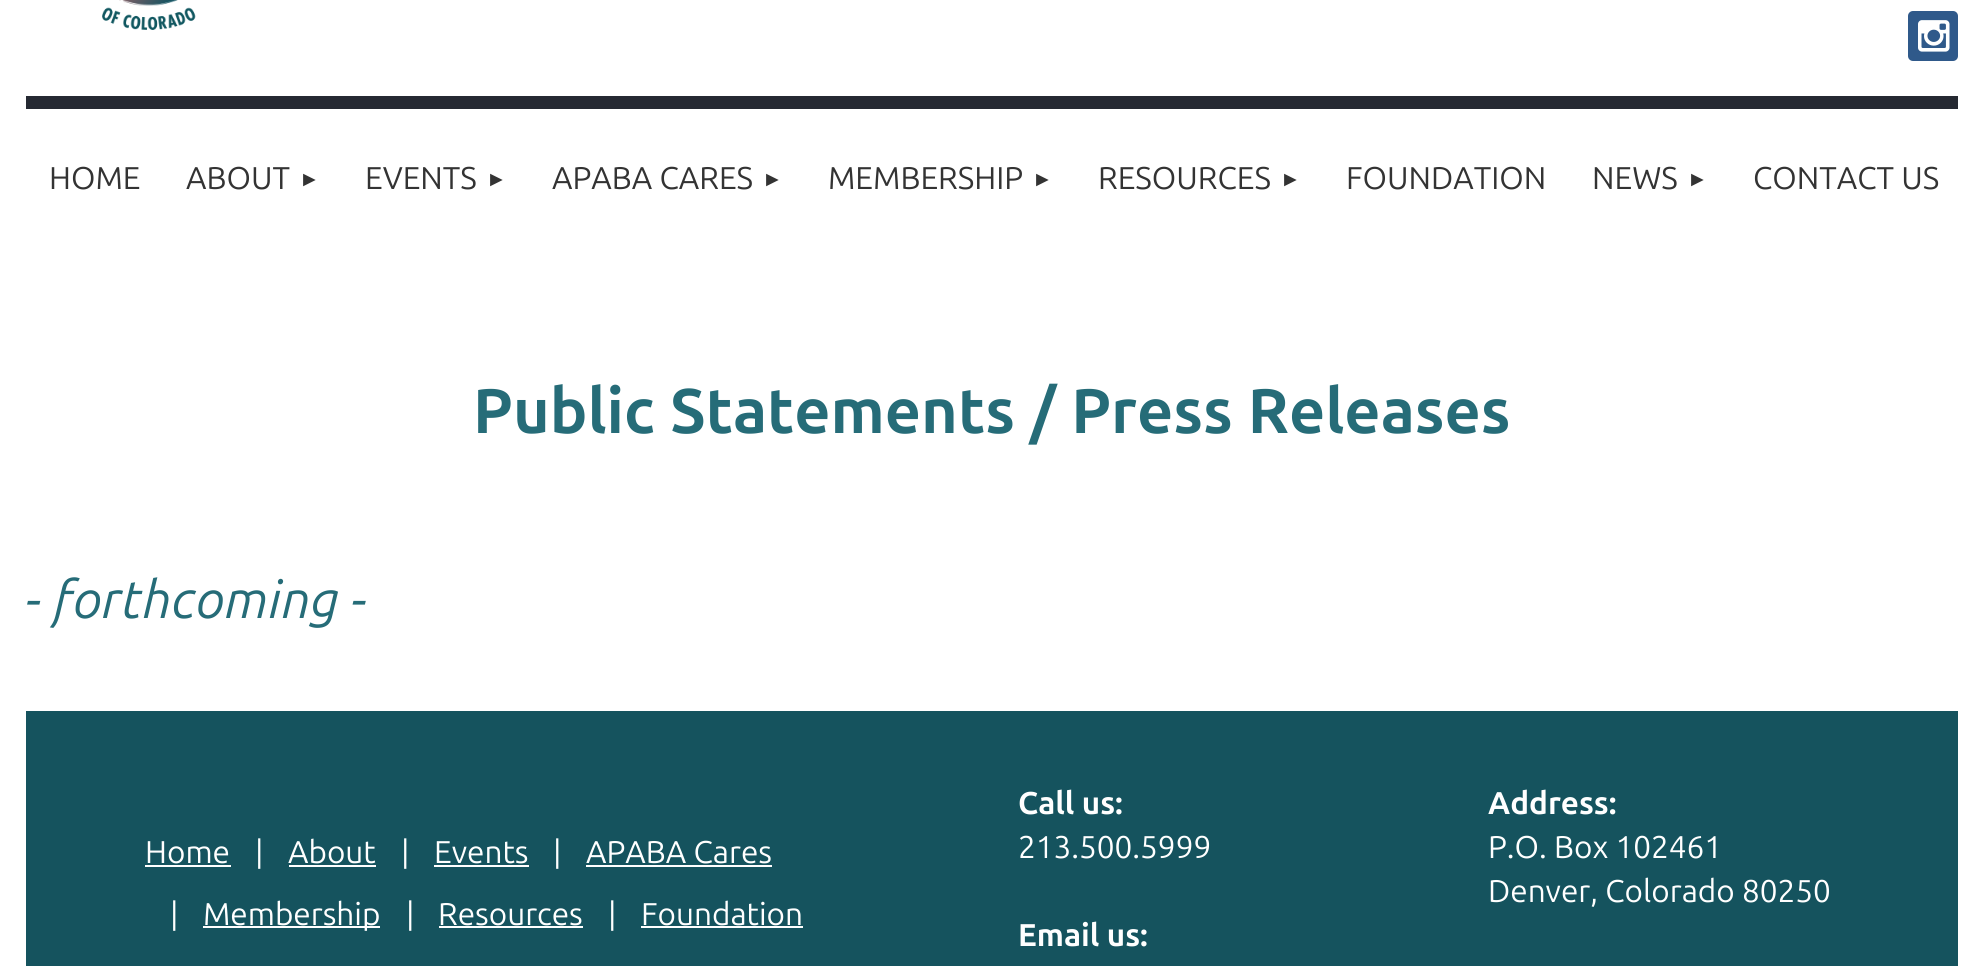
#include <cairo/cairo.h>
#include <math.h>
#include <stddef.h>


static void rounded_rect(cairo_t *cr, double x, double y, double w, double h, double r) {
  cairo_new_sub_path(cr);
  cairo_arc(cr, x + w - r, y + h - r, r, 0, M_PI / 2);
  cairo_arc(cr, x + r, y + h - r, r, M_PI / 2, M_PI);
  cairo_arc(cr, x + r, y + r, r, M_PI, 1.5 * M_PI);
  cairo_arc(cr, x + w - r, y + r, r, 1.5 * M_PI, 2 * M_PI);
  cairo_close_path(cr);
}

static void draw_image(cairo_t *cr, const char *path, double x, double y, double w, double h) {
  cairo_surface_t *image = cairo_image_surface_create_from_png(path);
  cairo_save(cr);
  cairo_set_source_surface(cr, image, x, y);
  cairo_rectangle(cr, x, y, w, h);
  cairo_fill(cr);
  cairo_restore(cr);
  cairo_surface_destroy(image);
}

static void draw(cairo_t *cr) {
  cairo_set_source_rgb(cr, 1, 1, 1);
  cairo_paint(cr);
  draw_image(cr, "images/1.png", 102, 0, 94, 30);
  cairo_set_source_rgb(cr, 47 / 255.0, 89 / 255.0, 138 / 255.0);
  rounded_rect(cr, 1908, 11, 50, 50, 5);
  cairo_fill(cr);
  draw_image(cr, "images/2.png", 1918, 20, 32, 32);
  cairo_set_source_rgb(cr, 37 / 255.0, 41 / 255.0, 50 / 255.0);
  cairo_rectangle(cr, 26, 96, 1932, 13);
  cairo_fill(cr);
  cairo_set_source_rgb(cr, 21 / 255.0, 83 / 255.0, 94 / 255.0);
  cairo_rectangle(cr, 26, 711, 1932, 255);
  cairo_fill(cr);
  cairo_set_source_rgb(cr, 1, 1, 1);
  cairo_rectangle(cr, 145, 865, 86, 2);
  cairo_fill(cr);
  cairo_rectangle(cr, 289, 865, 87, 2);
  cairo_fill(cr);
  cairo_rectangle(cr, 434, 865, 95, 2);
  cairo_fill(cr);
  cairo_rectangle(cr, 586, 865, 186, 2);
  cairo_fill(cr);
  cairo_rectangle(cr, 203, 926, 177, 2);
  cairo_fill(cr);
  cairo_rectangle(cr, 439, 926, 144, 2);
  cairo_fill(cr);
  cairo_rectangle(cr, 641, 926, 162, 2);
  cairo_fill(cr);
  cairo_select_font_face(cr, "Ubuntu", CAIRO_FONT_SLANT_NORMAL, CAIRO_FONT_WEIGHT_NORMAL);
  cairo_set_font_size(cr, 31.5);
  cairo_set_source_rgb(cr, 51 / 255.0, 51 / 255.0, 51 / 255.0);
  cairo_move_to(cr, 49, 189);
  cairo_show_text(cr, "HOME");
  cairo_move_to(cr, 186, 189);
  cairo_show_text(cr, "ABOUT");
  cairo_select_font_face(cr, "Liberation Sans", CAIRO_FONT_SLANT_NORMAL, CAIRO_FONT_WEIGHT_NORMAL);
  cairo_set_font_size(cr, 21);
  cairo_move_to(cr, 299, 186);
  cairo_show_text(cr, "►");
  cairo_select_font_face(cr, "Ubuntu", CAIRO_FONT_SLANT_NORMAL, CAIRO_FONT_WEIGHT_NORMAL);
  cairo_set_font_size(cr, 31.5);
  cairo_move_to(cr, 365, 189);
  cairo_show_text(cr, "EVENTS");
  cairo_select_font_face(cr, "Liberation Sans", CAIRO_FONT_SLANT_NORMAL, CAIRO_FONT_WEIGHT_NORMAL);
  cairo_set_font_size(cr, 21);
  cairo_move_to(cr, 486, 186);
  cairo_show_text(cr, "►");
  cairo_select_font_face(cr, "Ubuntu", CAIRO_FONT_SLANT_NORMAL, CAIRO_FONT_WEIGHT_NORMAL);
  cairo_set_font_size(cr, 31.5);
  cairo_move_to(cr, 552, 189);
  cairo_show_text(cr, "APABA CARES");
  cairo_select_font_face(cr, "Liberation Sans", CAIRO_FONT_SLANT_NORMAL, CAIRO_FONT_WEIGHT_NORMAL);
  cairo_set_font_size(cr, 21);
  cairo_move_to(cr, 762, 186);
  cairo_show_text(cr, "►");
  cairo_select_font_face(cr, "Ubuntu", CAIRO_FONT_SLANT_NORMAL, CAIRO_FONT_WEIGHT_NORMAL);
  cairo_set_font_size(cr, 31.5);
  cairo_move_to(cr, 828, 189);
  cairo_show_text(cr, "MEMBERSHIP");
  cairo_select_font_face(cr, "Liberation Sans", CAIRO_FONT_SLANT_NORMAL, CAIRO_FONT_WEIGHT_NORMAL);
  cairo_set_font_size(cr, 21);
  cairo_move_to(cr, 1032, 186);
  cairo_show_text(cr, "►");
  cairo_select_font_face(cr, "Ubuntu", CAIRO_FONT_SLANT_NORMAL, CAIRO_FONT_WEIGHT_NORMAL);
  cairo_set_font_size(cr, 31.5);
  cairo_move_to(cr, 1098, 189);
  cairo_show_text(cr, "RESOURCES");
  cairo_select_font_face(cr, "Liberation Sans", CAIRO_FONT_SLANT_NORMAL, CAIRO_FONT_WEIGHT_NORMAL);
  cairo_set_font_size(cr, 21);
  cairo_move_to(cr, 1280, 186);
  cairo_show_text(cr, "►");
  cairo_select_font_face(cr, "Ubuntu", CAIRO_FONT_SLANT_NORMAL, CAIRO_FONT_WEIGHT_NORMAL);
  cairo_set_font_size(cr, 31.5);
  cairo_move_to(cr, 1346, 189);
  cairo_show_text(cr, "FOUNDATION");
  cairo_move_to(cr, 1592, 189);
  cairo_show_text(cr, "NEWS");
  cairo_select_font_face(cr, "Liberation Sans", CAIRO_FONT_SLANT_NORMAL, CAIRO_FONT_WEIGHT_NORMAL);
  cairo_set_font_size(cr, 21);
  cairo_move_to(cr, 1687, 186);
  cairo_show_text(cr, "►");
  cairo_select_font_face(cr, "Ubuntu", CAIRO_FONT_SLANT_NORMAL, CAIRO_FONT_WEIGHT_NORMAL);
  cairo_set_font_size(cr, 31.5);
  cairo_move_to(cr, 1753, 189);
  cairo_show_text(cr, "CONTACT US");
  cairo_select_font_face(cr, "Ubuntu", CAIRO_FONT_SLANT_NORMAL, CAIRO_FONT_WEIGHT_BOLD);
  cairo_set_font_size(cr, 63);
  cairo_set_source_rgb(cr, 38 / 255.0, 108 / 255.0, 120 / 255.0);
  cairo_move_to(cr, 473, 433);
  cairo_show_text(cr, "Public Statements / Press Releases");
  cairo_select_font_face(cr, "Ubuntu", CAIRO_FONT_SLANT_ITALIC, CAIRO_FONT_WEIGHT_NORMAL);
  cairo_set_font_size(cr, 52.5);
  cairo_move_to(cr, 26, 618);
  cairo_show_text(cr, "- forthcoming -");
  cairo_select_font_face(cr, "Ubuntu", CAIRO_FONT_SLANT_NORMAL, CAIRO_FONT_WEIGHT_NORMAL);
  cairo_set_font_size(cr, 31.5);
  cairo_set_source_rgb(cr, 1, 1, 1);
  cairo_move_to(cr, 145, 863);
  cairo_show_text(cr, "Home");
  cairo_move_to(cr, 255, 863);
  cairo_show_text(cr, "|");
  cairo_move_to(cr, 288, 863);
  cairo_show_text(cr, "About");
  cairo_move_to(cr, 401, 863);
  cairo_show_text(cr, "|");
  cairo_move_to(cr, 434, 863);
  cairo_show_text(cr, "Events");
  cairo_move_to(cr, 553, 863);
  cairo_show_text(cr, "|");
  cairo_move_to(cr, 586, 863);
  cairo_show_text(cr, "APABA Cares");
  cairo_move_to(cr, 170, 925);
  cairo_show_text(cr, "|");
  cairo_move_to(cr, 203, 925);
  cairo_show_text(cr, "Membership");
  cairo_move_to(cr, 406, 925);
  cairo_show_text(cr, "|");
  cairo_move_to(cr, 438, 925);
  cairo_show_text(cr, "Resources");
  cairo_move_to(cr, 608, 925);
  cairo_show_text(cr, "|");
  cairo_move_to(cr, 641, 925);
  cairo_show_text(cr, "Foundation");
  cairo_select_font_face(cr, "Ubuntu", CAIRO_FONT_SLANT_NORMAL, CAIRO_FONT_WEIGHT_BOLD);
  cairo_move_to(cr, 1018, 814);
  cairo_show_text(cr, "Call us:");
  cairo_select_font_face(cr, "Ubuntu", CAIRO_FONT_SLANT_NORMAL, CAIRO_FONT_WEIGHT_NORMAL);
  cairo_move_to(cr, 1018, 858);
  cairo_show_text(cr, "213.500.5999");
  cairo_select_font_face(cr, "Ubuntu", CAIRO_FONT_SLANT_NORMAL, CAIRO_FONT_WEIGHT_BOLD);
  cairo_move_to(cr, 1018, 946);
  cairo_show_text(cr, "Email us:");
  cairo_move_to(cr, 1488, 814);
  cairo_show_text(cr, "Address:");
  cairo_select_font_face(cr, "Ubuntu", CAIRO_FONT_SLANT_NORMAL, CAIRO_FONT_WEIGHT_NORMAL);
  cairo_move_to(cr, 1488, 858);
  cairo_show_text(cr, "P.O. Box 102461");
  cairo_move_to(cr, 1488, 902);
  cairo_show_text(cr, "Denver, Colorado 80250");
}

int main(void) {
  cairo_surface_t *surface = cairo_image_surface_create(CAIRO_FORMAT_RGB24, 1984, 966);
  cairo_t *cr = cairo_create(surface);
  cairo_font_options_t *options = cairo_font_options_create();
  cairo_font_options_set_hint_metrics(options, CAIRO_HINT_METRICS_OFF);
  cairo_font_options_set_hint_style(options, CAIRO_HINT_STYLE_NONE);
  cairo_set_font_options(cr, options);
  cairo_set_miter_limit(cr, 4);
  draw(cr);
  cairo_surface_write_to_png(surface, "out.png");
  cairo_font_options_destroy(options);
  cairo_destroy(cr);
  cairo_surface_destroy(surface);
  return 0;
}
